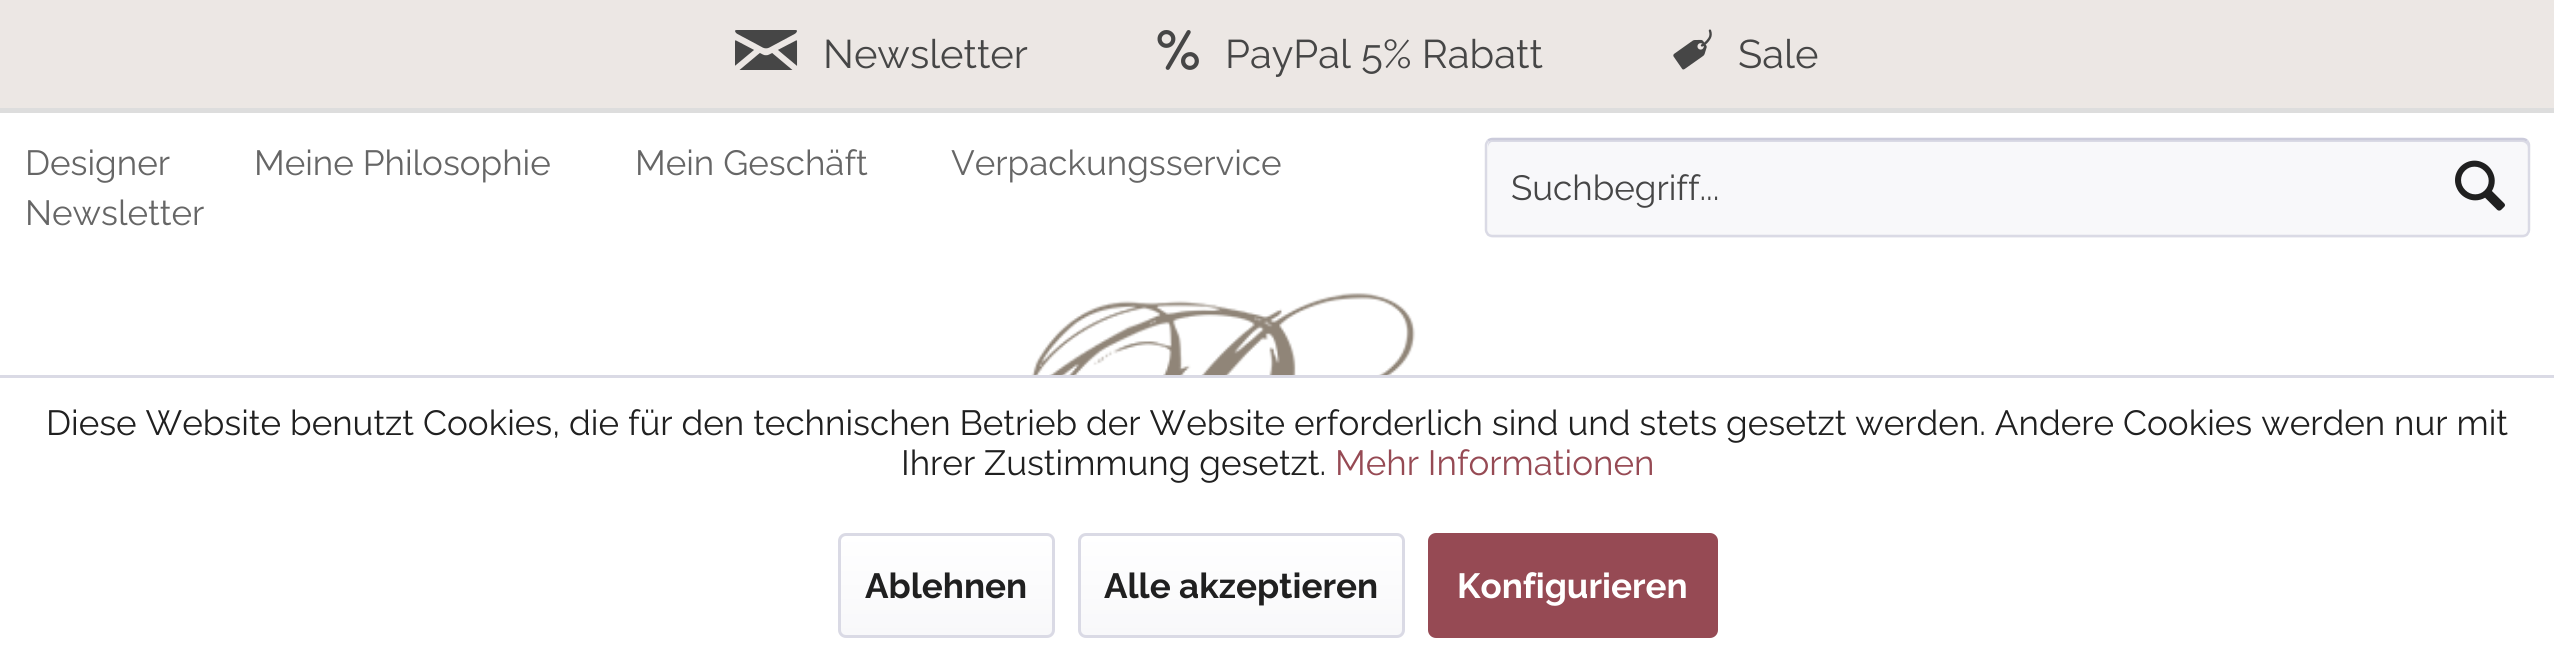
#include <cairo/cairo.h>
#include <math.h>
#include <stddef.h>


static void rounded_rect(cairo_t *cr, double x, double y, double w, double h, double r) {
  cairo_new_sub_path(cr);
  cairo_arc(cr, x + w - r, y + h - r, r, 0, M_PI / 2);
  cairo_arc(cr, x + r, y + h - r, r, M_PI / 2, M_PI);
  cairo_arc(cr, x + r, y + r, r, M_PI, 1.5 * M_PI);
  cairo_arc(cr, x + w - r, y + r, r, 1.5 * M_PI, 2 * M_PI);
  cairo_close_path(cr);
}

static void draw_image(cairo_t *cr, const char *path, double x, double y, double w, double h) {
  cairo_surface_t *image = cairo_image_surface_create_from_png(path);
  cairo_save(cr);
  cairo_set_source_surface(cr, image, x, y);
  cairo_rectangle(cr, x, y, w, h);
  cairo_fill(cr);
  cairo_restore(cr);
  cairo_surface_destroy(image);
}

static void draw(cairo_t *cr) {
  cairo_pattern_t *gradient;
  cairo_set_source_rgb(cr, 236 / 255.0, 231 / 255.0, 228 / 255.0);
  cairo_paint(cr);
  cairo_set_source_rgb(cr, 221 / 255.0, 221 / 255.0, 221 / 255.0);
  cairo_rectangle(cr, 0, 108, 2554, 5);
  cairo_fill(cr);
  draw_image(cr, "images/1.png", 735, 30, 63, 40);
  draw_image(cr, "images/2.png", 1157, 30, 42, 40);
  draw_image(cr, "images/3.png", 1673, 29, 39, 41);
  cairo_set_source_rgb(cr, 1, 1, 1);
  cairo_rectangle(cr, 0, 113, 2554, 262);
  cairo_fill(cr);
  cairo_set_source_rgb(cr, 248 / 255.0, 248 / 255.0, 250 / 255.0);
  rounded_rect(cr, 1485, 138, 1045, 100, 8);
  cairo_fill(cr);
  cairo_set_source_rgb(cr, 218 / 255.0, 218 / 255.0, 229 / 255.0);
  cairo_new_path(cr);
  cairo_move_to(cr, 1492, 142);
  cairo_line_to(cr, 2522, 142);
  cairo_curve_to(cr, 2525, 142, 2528, 145, 2528, 148);
  cairo_curve_to(cr, 2528, 144, 2528, 140, 2523, 140);
  cairo_line_to(cr, 1493, 140);
  cairo_curve_to(cr, 1488, 140, 1488, 144, 1488, 148);
  cairo_curve_to(cr, 1488, 145, 1490, 142, 1492, 142);
  cairo_close_path(cr);
  cairo_fill(cr);
  cairo_new_path(cr);
  cairo_move_to(cr, 1488, 140.5);
  cairo_curve_to(cr, 1489.5, 139.5, 1491, 139, 1492.5, 139);
  cairo_line_to(cr, 2522.5, 139);
  cairo_curve_to(cr, 2524, 139, 2525.5, 139.5, 2527, 140.5);
  cairo_set_source_rgb(cr, 203 / 255.0, 203 / 255.0, 219 / 255.0);
  cairo_set_line_width(cr, 2.5);
  cairo_stroke(cr);
  cairo_new_path(cr);
  cairo_move_to(cr, 2527, 140.5);
  cairo_curve_to(cr, 2528, 142, 2529, 143.5, 2529, 145);
  cairo_line_to(cr, 2529, 230);
  cairo_curve_to(cr, 2529, 231.5, 2528, 233, 2527, 234.5);
  cairo_curve_to(cr, 2525.5, 235.5, 2524, 236, 2522.5, 236);
  cairo_line_to(cr, 1492.5, 236);
  cairo_curve_to(cr, 1491, 236, 1489.5, 235.5, 1488, 234.5);
  cairo_curve_to(cr, 1487, 233, 1486, 231.5, 1486, 230);
  cairo_line_to(cr, 1486, 145);
  cairo_curve_to(cr, 1486, 143.5, 1487, 142, 1488, 140.5);
  cairo_set_source_rgb(cr, 218 / 255.0, 218 / 255.0, 229 / 255.0);
  cairo_stroke(cr);
  draw_image(cr, "images/4.png", 2455, 160, 50, 51);
  draw_image(cr, "images/5.png", 1031, 292, 385, 83);
  cairo_set_source_rgb(cr, 1, 1, 1);
  cairo_rectangle(cr, 0, 378, 2554, 283);
  cairo_fill(cr);
  cairo_set_source_rgb(cr, 218 / 255.0, 218 / 255.0, 229 / 255.0);
  cairo_rectangle(cr, 0, 375, 2554, 3);
  cairo_fill(cr);
  gradient = cairo_pattern_create_linear(946, 535, 946, 635);
  cairo_pattern_add_color_stop_rgba(gradient, 0, 1, 1, 1, 1);
  cairo_pattern_add_color_stop_rgba(gradient, 1, 248 / 255.0, 248 / 255.0, 250 / 255.0, 1);
  cairo_set_source(cr, gradient);
  cairo_pattern_destroy(gradient);
  rounded_rect(cr, 840, 535, 213, 100, 5);
  cairo_fill(cr);
  rounded_rect(cr, 839.5, 534.5, 214, 102, 6.5);
  cairo_set_source_rgb(cr, 218 / 255.0, 218 / 255.0, 229 / 255.0);
  cairo_set_line_width(cr, 3);
  cairo_stroke(cr);
  gradient = cairo_pattern_create_linear(1241, 535, 1241, 635);
  cairo_pattern_add_color_stop_rgba(gradient, 0, 1, 1, 1, 1);
  cairo_pattern_add_color_stop_rgba(gradient, 1, 248 / 255.0, 248 / 255.0, 250 / 255.0, 1);
  cairo_set_source(cr, gradient);
  cairo_pattern_destroy(gradient);
  rounded_rect(cr, 1080, 535, 323, 100, 5);
  cairo_fill(cr);
  rounded_rect(cr, 1079.5, 534.5, 324, 102, 6.5);
  cairo_set_source_rgb(cr, 218 / 255.0, 218 / 255.0, 229 / 255.0);
  cairo_stroke(cr);
  cairo_set_source_rgb(cr, 150 / 255.0, 74 / 255.0, 84 / 255.0);
  rounded_rect(cr, 1428, 533, 290, 105, 8);
  cairo_fill(cr);
  cairo_select_font_face(cr, "Raleway Thin", CAIRO_FONT_SLANT_NORMAL, CAIRO_FONT_WEIGHT_NORMAL);
  cairo_set_font_size(cr, 40);
  cairo_set_source_rgb(cr, 70 / 255.0, 70 / 255.0, 70 / 255.0);
  cairo_move_to(cr, 823, 68);
  cairo_show_text(cr, "Newsletter");
  cairo_move_to(cr, 1225, 68);
  cairo_show_text(cr, "PayPal 5% Rabatt");
  cairo_move_to(cr, 1738, 68);
  cairo_show_text(cr, "Sale");
  cairo_set_font_size(cr, 35);
  cairo_set_source_rgb(cr, 102 / 255.0, 102 / 255.0, 102 / 255.0);
  cairo_move_to(cr, 25, 175);
  cairo_show_text(cr, "Designer");
  cairo_move_to(cr, 254, 175);
  cairo_show_text(cr, "Meine Philosophie");
  cairo_move_to(cr, 635, 175);
  cairo_show_text(cr, "Mein Geschäft");
  cairo_move_to(cr, 951, 175);
  cairo_show_text(cr, "Verpackungsservice");
  cairo_move_to(cr, 25, 225);
  cairo_show_text(cr, "Newsletter");
  cairo_set_source_rgb(cr, 70 / 255.0, 70 / 255.0, 70 / 255.0);
  cairo_move_to(cr, 1511, 200);
  cairo_show_text(cr, "Suchbegriff...");
  cairo_set_source_rgb(cr, 32 / 255.0, 32 / 255.0, 32 / 255.0);
  cairo_move_to(cr, 46, 435);
  cairo_show_text(cr, "Diese Website benutzt Cookies, die für den technischen Betrieb der Website erforderlich sind und stets gesetzt werden. Andere Cookies werden nur mit");
  cairo_move_to(cr, 901, 475);
  cairo_show_text(cr, "Ihrer Zustimmung gesetzt.");
  cairo_set_source_rgb(cr, 150 / 255.0, 74 / 255.0, 84 / 255.0);
  cairo_move_to(cr, 1335, 475);
  cairo_show_text(cr, "Mehr Informationen");
  cairo_select_font_face(cr, "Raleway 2 Thin", CAIRO_FONT_SLANT_NORMAL, CAIRO_FONT_WEIGHT_NORMAL);
  cairo_set_source_rgb(cr, 32 / 255.0, 32 / 255.0, 32 / 255.0);
  cairo_move_to(cr, 865, 598);
  cairo_show_text(cr, "Ablehnen");
  cairo_move_to(cr, 1104, 598);
  cairo_show_text(cr, "Alle akzeptieren");
  cairo_set_source_rgb(cr, 1, 1, 1);
  cairo_move_to(cr, 1457, 598);
  cairo_show_text(cr, "Konfigurieren");
}

int main(void) {
  cairo_surface_t *surface = cairo_image_surface_create(CAIRO_FORMAT_RGB24, 2554, 661);
  cairo_t *cr = cairo_create(surface);
  cairo_font_options_t *options = cairo_font_options_create();
  cairo_font_options_set_hint_metrics(options, CAIRO_HINT_METRICS_OFF);
  cairo_font_options_set_hint_style(options, CAIRO_HINT_STYLE_NONE);
  cairo_set_font_options(cr, options);
  cairo_set_miter_limit(cr, 4);
  draw(cr);
  cairo_surface_write_to_png(surface, "out.png");
  cairo_font_options_destroy(options);
  cairo_destroy(cr);
  cairo_surface_destroy(surface);
  return 0;
}
